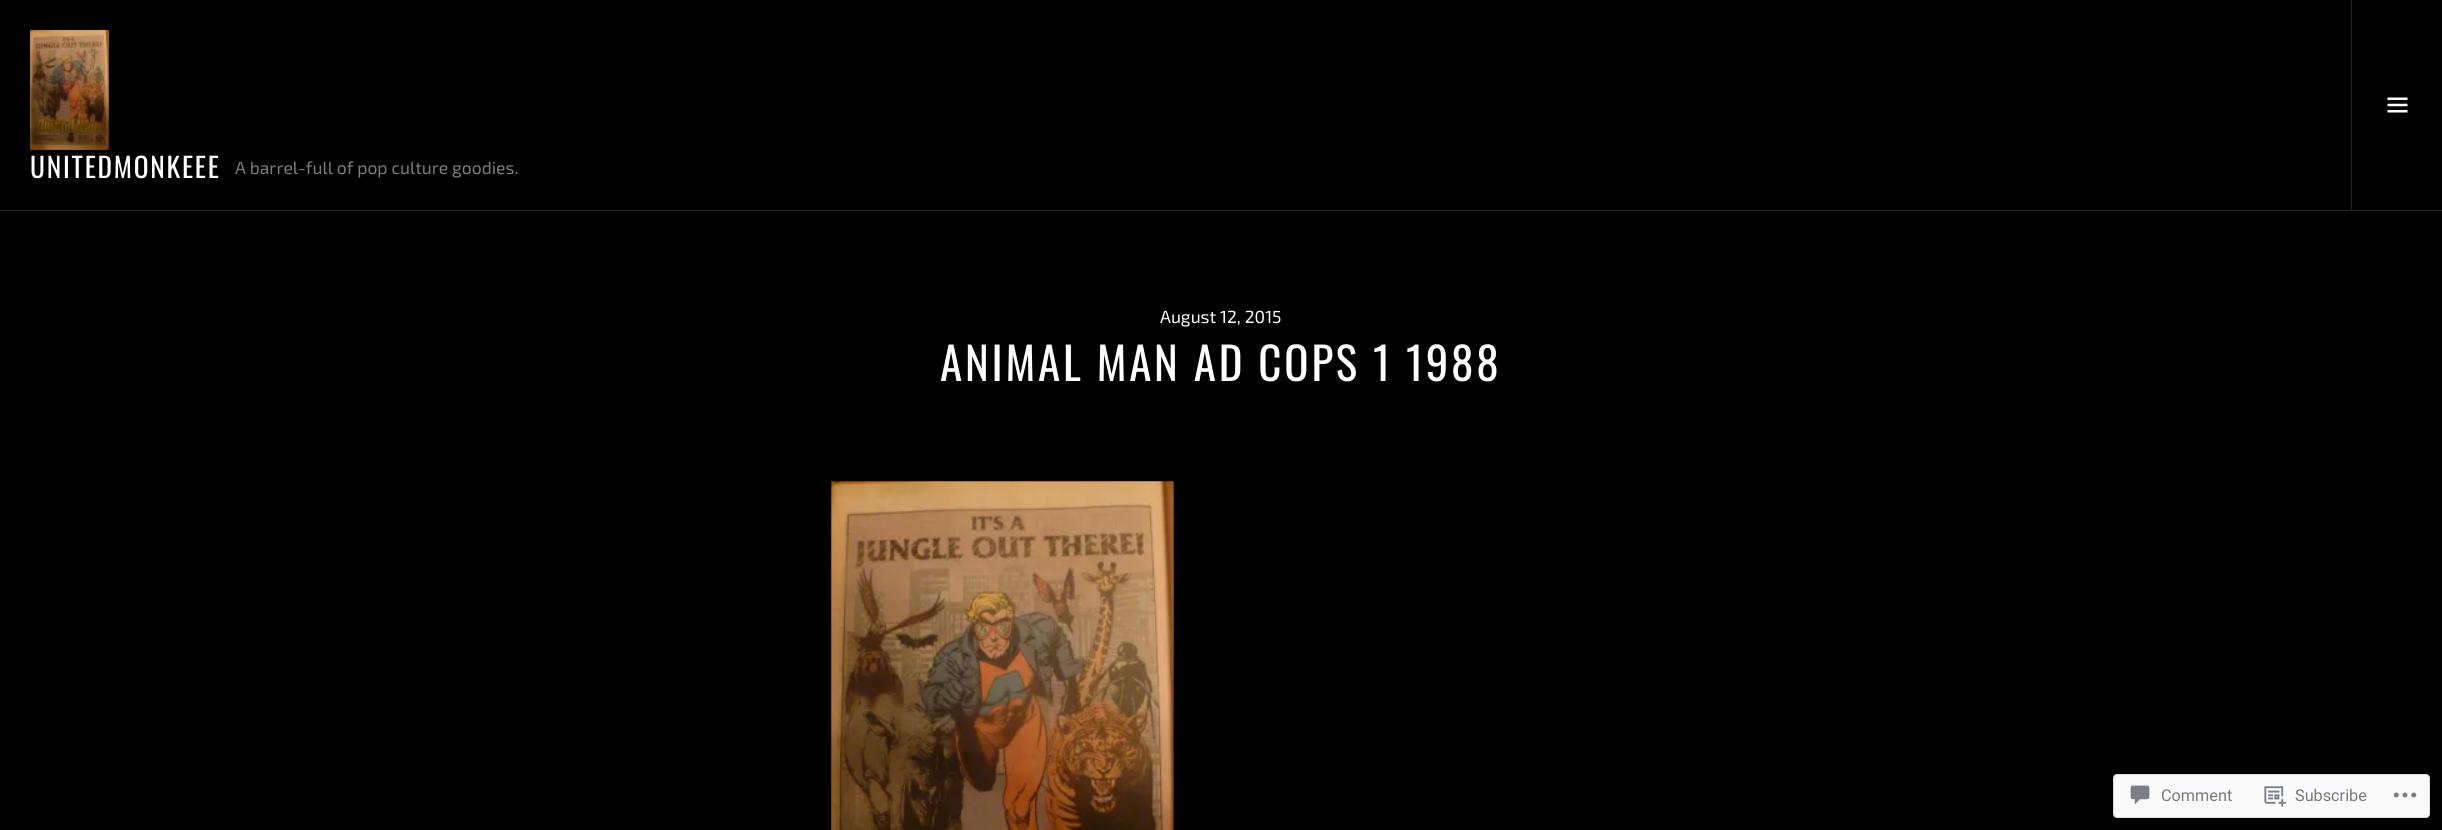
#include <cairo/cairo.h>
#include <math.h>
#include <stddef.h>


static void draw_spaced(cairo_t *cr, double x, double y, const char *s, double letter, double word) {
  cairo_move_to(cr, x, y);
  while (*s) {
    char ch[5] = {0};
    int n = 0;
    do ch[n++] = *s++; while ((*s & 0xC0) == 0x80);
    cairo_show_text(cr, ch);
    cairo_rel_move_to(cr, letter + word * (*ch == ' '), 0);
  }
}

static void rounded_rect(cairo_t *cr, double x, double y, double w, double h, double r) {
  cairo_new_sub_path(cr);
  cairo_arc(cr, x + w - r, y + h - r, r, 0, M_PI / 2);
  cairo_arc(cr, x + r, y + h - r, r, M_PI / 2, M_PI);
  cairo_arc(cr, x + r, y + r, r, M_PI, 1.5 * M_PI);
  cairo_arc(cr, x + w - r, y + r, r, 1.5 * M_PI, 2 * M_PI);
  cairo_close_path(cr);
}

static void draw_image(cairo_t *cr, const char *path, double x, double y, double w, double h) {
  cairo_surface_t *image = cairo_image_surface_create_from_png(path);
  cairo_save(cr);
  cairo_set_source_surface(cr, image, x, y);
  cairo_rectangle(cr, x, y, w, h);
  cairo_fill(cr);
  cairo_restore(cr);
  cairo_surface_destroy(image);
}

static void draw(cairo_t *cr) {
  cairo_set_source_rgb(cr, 0, 0, 0);
  cairo_paint(cr);
  cairo_set_source_rgb(cr, 38 / 255.0, 38 / 255.0, 38 / 255.0);
  cairo_rectangle(cr, 0, 210, 2442, 1);
  cairo_fill(cr);
  draw_image(cr, "images/1.png", 30, 30, 79, 120);
  cairo_rectangle(cr, 2351, 0, 1, 210);
  cairo_fill(cr);
  draw_image(cr, "images/2.png", 2387, 97, 21, 16);
  draw_image(cr, "images/3.png", 831, 481, 343, 349);
  cairo_set_source_rgb(cr, 250 / 255.0, 250 / 255.0, 250 / 255.0);
  rounded_rect(cr, 2113.5, 774.5, 316, 43, 3.5);
  cairo_fill_preserve(cr);
  cairo_set_source_rgb(cr, 216 / 255.0, 216 / 255.0, 218 / 255.0);
  cairo_set_line_width(cr, 1);
  cairo_stroke(cr);
  draw_image(cr, "images/4.png", 2130, 785, 20, 20);
  draw_image(cr, "images/5.png", 2264, 786, 22, 21);
  draw_image(cr, "images/6.png", 2393, 792, 24, 6);
  cairo_select_font_face(cr, "Oswald", CAIRO_FONT_SLANT_NORMAL, CAIRO_FONT_WEIGHT_NORMAL);
  cairo_set_font_size(cr, 27.5);
  cairo_set_source_rgb(cr, 1, 1, 1);
  draw_spaced(cr, 30, 178, "UNITEDMONKEEE", 1.75, 0);
  cairo_select_font_face(cr, "Exo 2", CAIRO_FONT_SLANT_NORMAL, CAIRO_FONT_WEIGHT_NORMAL);
  cairo_set_font_size(cr, 17.5);
  cairo_set_source_rgb(cr, 124 / 255.0, 124 / 255.0, 124 / 255.0);
  cairo_move_to(cr, 235, 174);
  cairo_show_text(cr, "A barrel-full of pop culture goodies.");
  cairo_set_source_rgb(cr, 1, 1, 1);
  cairo_move_to(cr, 1160, 323);
  cairo_show_text(cr, "August 12, 2015");
  cairo_select_font_face(cr, "Oswald", CAIRO_FONT_SLANT_NORMAL, CAIRO_FONT_WEIGHT_NORMAL);
  cairo_set_font_size(cr, 45);
  draw_spaced(cr, 940, 381, "ANIMAL MAN AD COPS 1 1988", 2.8, 0);
  cairo_select_font_face(cr, "Roboto", CAIRO_FONT_SLANT_NORMAL, CAIRO_FONT_WEIGHT_NORMAL);
  cairo_set_font_size(cr, 16.25);
  cairo_set_source_rgb(cr, 118 / 255.0, 122 / 255.0, 127 / 255.0);
  cairo_move_to(cr, 2161, 801);
  cairo_show_text(cr, "Comment");
  cairo_move_to(cr, 2295, 801);
  cairo_show_text(cr, "Subscribe");
}

int main(void) {
  cairo_surface_t *surface = cairo_image_surface_create(CAIRO_FORMAT_RGB24, 2442, 830);
  cairo_t *cr = cairo_create(surface);
  cairo_font_options_t *options = cairo_font_options_create();
  cairo_font_options_set_hint_metrics(options, CAIRO_HINT_METRICS_OFF);
  cairo_font_options_set_hint_style(options, CAIRO_HINT_STYLE_NONE);
  cairo_set_font_options(cr, options);
  cairo_set_miter_limit(cr, 4);
  draw(cr);
  cairo_surface_write_to_png(surface, "out.png");
  cairo_font_options_destroy(options);
  cairo_destroy(cr);
  cairo_surface_destroy(surface);
  return 0;
}
